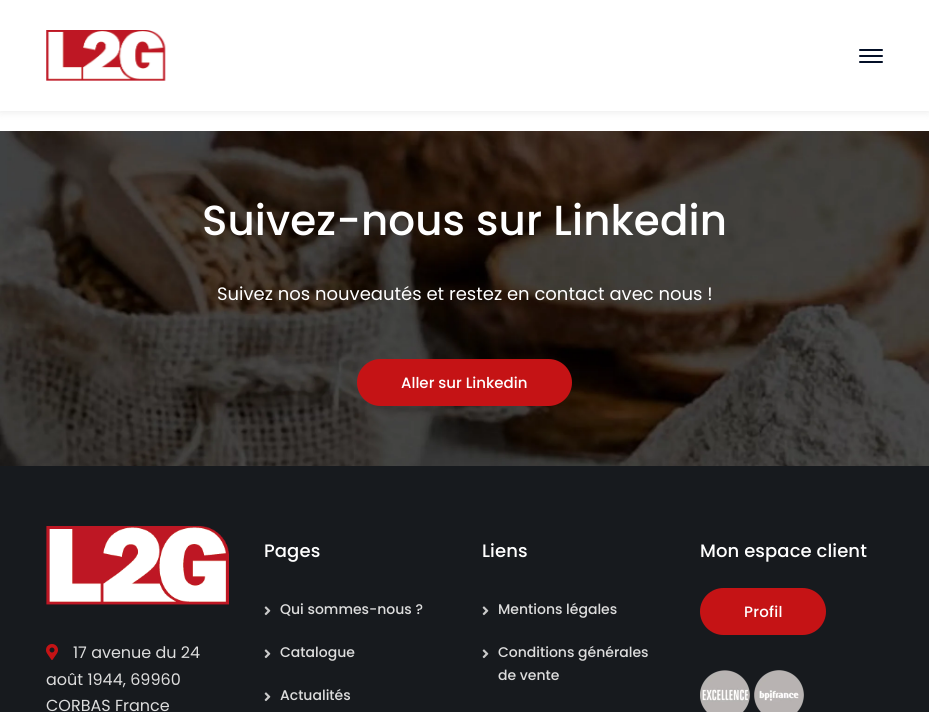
#include <cairo/cairo.h>
#include <math.h>
#include <stddef.h>


static void draw_spaced(cairo_t *cr, double x, double y, const char *s, double letter, double word) {
  cairo_move_to(cr, x, y);
  while (*s) {
    char ch[5] = {0};
    int n = 0;
    do ch[n++] = *s++; while ((*s & 0xC0) == 0x80);
    cairo_show_text(cr, ch);
    cairo_rel_move_to(cr, letter + word * (*ch == ' '), 0);
  }
}

static void rounded_rect(cairo_t *cr, double x, double y, double w, double h, double r) {
  cairo_new_sub_path(cr);
  cairo_arc(cr, x + w - r, y + h - r, r, 0, M_PI / 2);
  cairo_arc(cr, x + r, y + h - r, r, M_PI / 2, M_PI);
  cairo_arc(cr, x + r, y + r, r, M_PI, 1.5 * M_PI);
  cairo_arc(cr, x + w - r, y + r, r, 1.5 * M_PI, 2 * M_PI);
  cairo_close_path(cr);
}

static void draw_shadow(cairo_t *cr, double x, double y, double w, double h, double r, double blur, double alpha) {
  cairo_push_group_with_content(cr, CAIRO_CONTENT_ALPHA);
  cairo_set_operator(cr, CAIRO_OPERATOR_SOURCE);
  for (int i = 15; i >= -15 && fmin(w, h) + blur * i / 3 > 0; i -= 2) {
    double e = blur * i / 6;
    cairo_set_source_rgba(cr, 0, 0, 0, alpha * erfc((i - 1) / 8.5) / 2);
    rounded_rect(cr, x - e, y - e, w + 2 * e, h + 2 * e, fmax(0, fmin(r + e + blur * .6, fmin(w, h) / 2 + e)));
    cairo_fill(cr);
  }
  cairo_pattern_t *soft = cairo_pop_group(cr);
  cairo_mask(cr, soft);
  cairo_pattern_destroy(soft);
}

static void draw_image(cairo_t *cr, const char *path, double x, double y, double w, double h) {
  cairo_surface_t *image = cairo_image_surface_create_from_png(path);
  cairo_save(cr);
  cairo_set_source_surface(cr, image, x, y);
  cairo_rectangle(cr, x, y, w, h);
  cairo_fill(cr);
  cairo_restore(cr);
  cairo_surface_destroy(image);
}

static void draw(cairo_t *cr) {
  cairo_set_source_rgb(cr, 1, 1, 1);
  cairo_paint(cr);
  cairo_set_source_rgb(cr, 0, 0, 0);
  draw_shadow(cr, 0, 0, 929, 111, 0, 5, 0.1);
  cairo_set_source_rgb(cr, 1, 1, 1);
  cairo_rectangle(cr, 0, 0, 929, 111);
  cairo_fill(cr);
  draw_image(cr, "images/1.png", 46, 30, 120, 51);
  cairo_set_source_rgb(cr, 3 / 255.0, 15 / 255.0, 39 / 255.0);
  rounded_rect(cr, 859, 49, 24, 2, 1);
  cairo_fill(cr);
  rounded_rect(cr, 859, 55, 24, 2, 1);
  cairo_fill(cr);
  rounded_rect(cr, 859, 61, 24, 2, 1);
  cairo_fill(cr);
  draw_image(cr, "images/2.png", 0, 131, 929, 335);
  cairo_set_source_rgb(cr, 197 / 255.0, 19 / 255.0, 21 / 255.0);
  rounded_rect(cr, 357, 359, 215, 47, 23.5);
  cairo_fill(cr);
  cairo_set_source_rgb(cr, 23 / 255.0, 26 / 255.0, 30 / 255.0);
  cairo_rectangle(cr, 0, 466, 929, 246);
  cairo_fill(cr);
  draw_image(cr, "images/3.png", 46, 526, 183, 79);
  draw_image(cr, "images/4.png", 46, 644, 12, 16);
  draw_image(cr, "images/5.png", 264, 606, 7, 10);
  draw_image(cr, "images/5.png", 264, 649, 7, 10);
  draw_image(cr, "images/5.png", 264, 692, 7, 10);
  draw_image(cr, "images/5.png", 482, 606, 7, 10);
  draw_image(cr, "images/5.png", 482, 649, 7, 10);
  cairo_set_source_rgb(cr, 197 / 255.0, 19 / 255.0, 21 / 255.0);
  rounded_rect(cr, 700, 588, 126, 47, 23.5);
  cairo_fill(cr);
  draw_image(cr, "images/6.png", 700, 670, 50, 42);
  draw_image(cr, "images/7.png", 754, 670, 50, 42);
  cairo_select_font_face(cr, "Poppins Medium", CAIRO_FONT_SLANT_NORMAL, CAIRO_FONT_WEIGHT_NORMAL);
  cairo_set_font_size(cr, 42);
  cairo_set_source_rgb(cr, 1, 1, 1);
  draw_spaced(cr, 202, 235, "Suivez-nous sur Linkedin", 0.1, 0);
  cairo_select_font_face(cr, "Poppins", CAIRO_FONT_SLANT_NORMAL, CAIRO_FONT_WEIGHT_NORMAL);
  cairo_set_font_size(cr, 18);
  cairo_move_to(cr, 217, 300);
  cairo_show_text(cr, "Suivez nos nouveautés et restez en contact avec nous !");
  cairo_select_font_face(cr, "Poppins Medium", CAIRO_FONT_SLANT_NORMAL, CAIRO_FONT_WEIGHT_NORMAL);
  cairo_set_font_size(cr, 15);
  cairo_move_to(cr, 401, 388);
  cairo_show_text(cr, "Aller sur Linkedin");
  cairo_select_font_face(cr, "Poppins", CAIRO_FONT_SLANT_NORMAL, CAIRO_FONT_WEIGHT_NORMAL);
  cairo_set_font_size(cr, 16);
  cairo_set_source_rgb(cr, 221 / 255.0, 221 / 255.0, 221 / 255.0);
  cairo_move_to(cr, 73, 658);
  cairo_show_text(cr, "17 avenue du 24");
  cairo_move_to(cr, 46, 685);
  cairo_show_text(cr, "août 1944, 69960");
  cairo_move_to(cr, 46, 711);
  cairo_show_text(cr, "CORBAS France");
  cairo_select_font_face(cr, "Poppins Medium", CAIRO_FONT_SLANT_NORMAL, CAIRO_FONT_WEIGHT_NORMAL);
  cairo_set_font_size(cr, 18);
  cairo_set_source_rgb(cr, 1, 1, 1);
  draw_spaced(cr, 264, 557, "Pages", 0.1, 0);
  cairo_set_font_size(cr, 14);
  cairo_set_source_rgb(cr, 221 / 255.0, 221 / 255.0, 221 / 255.0);
  cairo_move_to(cr, 280, 614);
  cairo_show_text(cr, "Qui sommes-nous ?");
  cairo_move_to(cr, 280, 657);
  cairo_show_text(cr, "Catalogue");
  cairo_move_to(cr, 280, 700);
  cairo_show_text(cr, "Actualités");
  cairo_set_font_size(cr, 18);
  cairo_set_source_rgb(cr, 1, 1, 1);
  draw_spaced(cr, 482, 557, "Liens", 0.1, 0);
  cairo_set_font_size(cr, 14);
  cairo_set_source_rgb(cr, 221 / 255.0, 221 / 255.0, 221 / 255.0);
  cairo_move_to(cr, 498, 614);
  cairo_show_text(cr, "Mentions légales");
  cairo_move_to(cr, 498, 657);
  cairo_show_text(cr, "Conditions générales");
  cairo_move_to(cr, 498, 680);
  cairo_show_text(cr, "de vente");
  cairo_set_font_size(cr, 18);
  cairo_set_source_rgb(cr, 1, 1, 1);
  draw_spaced(cr, 700, 557, "Mon espace client", 0.1, 0);
  cairo_set_font_size(cr, 15);
  draw_spaced(cr, 744, 617, "Profil", 0.25, 0);
}

int main(void) {
  cairo_surface_t *surface = cairo_image_surface_create(CAIRO_FORMAT_RGB24, 929, 712);
  cairo_t *cr = cairo_create(surface);
  cairo_font_options_t *options = cairo_font_options_create();
  cairo_font_options_set_hint_metrics(options, CAIRO_HINT_METRICS_OFF);
  cairo_font_options_set_hint_style(options, CAIRO_HINT_STYLE_NONE);
  cairo_set_font_options(cr, options);
  cairo_set_miter_limit(cr, 4);
  draw(cr);
  cairo_surface_write_to_png(surface, "out.png");
  cairo_font_options_destroy(options);
  cairo_destroy(cr);
  cairo_surface_destroy(surface);
  return 0;
}
